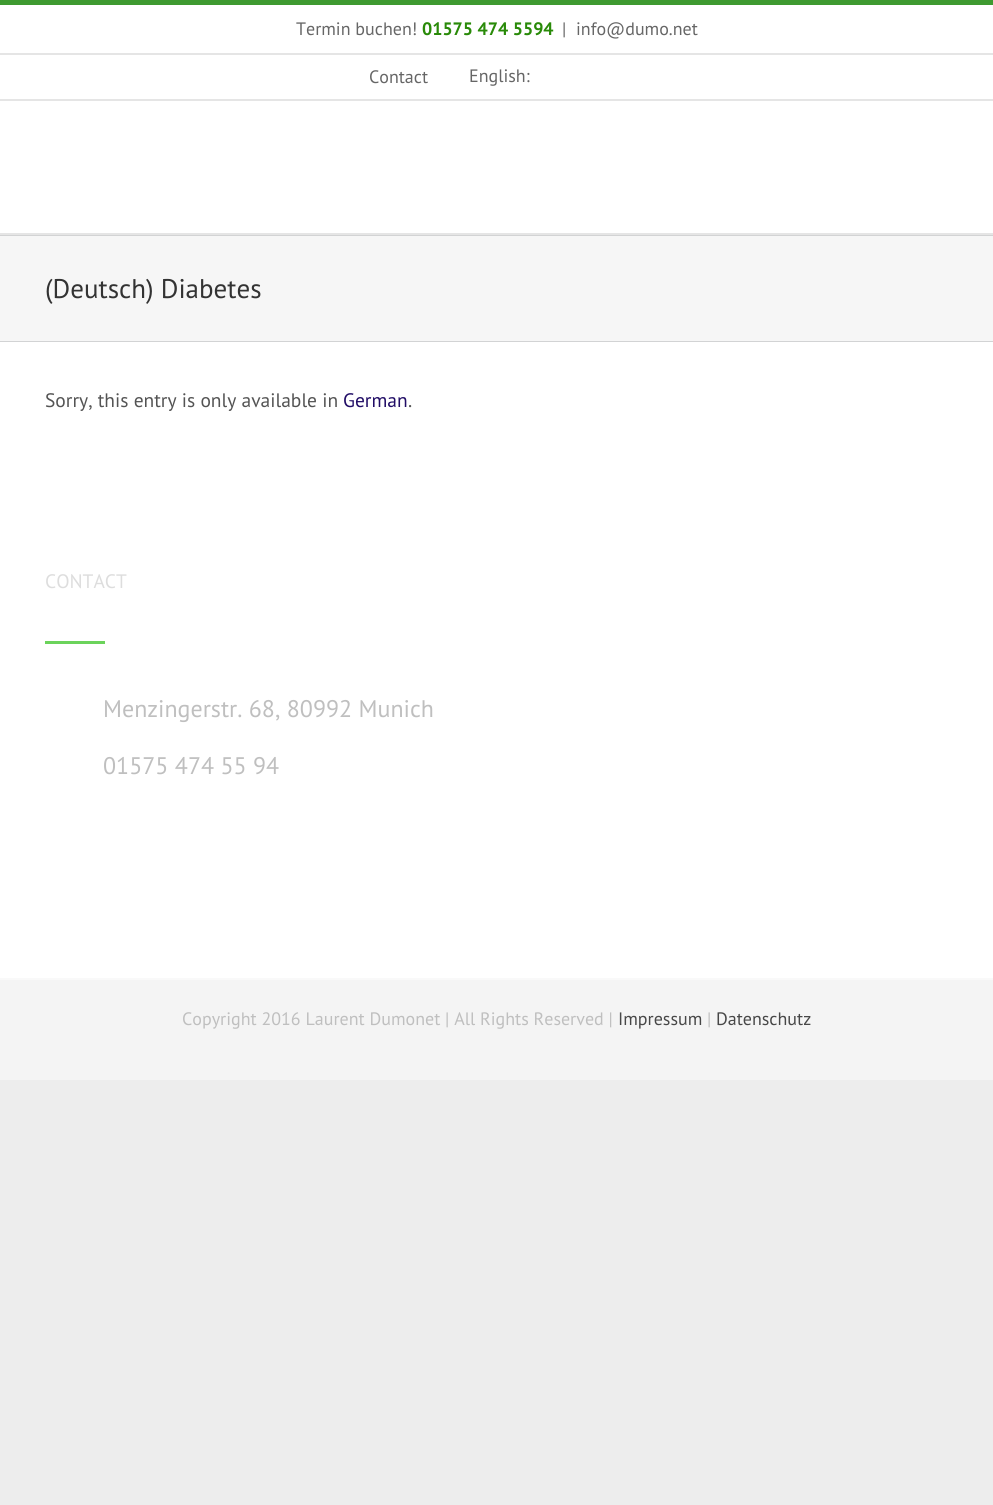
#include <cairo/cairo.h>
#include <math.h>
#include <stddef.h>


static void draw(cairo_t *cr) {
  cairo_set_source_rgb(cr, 237 / 255.0, 237 / 255.0, 237 / 255.0);
  cairo_paint(cr);
  cairo_set_source_rgb(cr, 1, 1, 1);
  cairo_rectangle(cr, 0, 5, 993, 94);
  cairo_fill(cr);
  cairo_set_source_rgb(cr, 62 / 255.0, 154 / 255.0, 48 / 255.0);
  cairo_rectangle(cr, 0, 0, 993, 5);
  cairo_fill(cr);
  cairo_set_source_rgb(cr, 229 / 255.0, 229 / 255.0, 229 / 255.0);
  cairo_rectangle(cr, 0, 99, 993, 2);
  cairo_fill(cr);
  cairo_rectangle(cr, 0, 53, 993, 2);
  cairo_fill(cr);
  cairo_set_source_rgb(cr, 1, 1, 1);
  cairo_rectangle(cr, 0, 101, 993, 132);
  cairo_fill(cr);
  cairo_set_source_rgb(cr, 229 / 255.0, 229 / 255.0, 229 / 255.0);
  cairo_rectangle(cr, 0, 233, 993, 2);
  cairo_fill(cr);
  cairo_set_source_rgb(cr, 246 / 255.0, 246 / 255.0, 246 / 255.0);
  cairo_rectangle(cr, 0, 236, 993, 105);
  cairo_fill(cr);
  cairo_set_source_rgb(cr, 210 / 255.0, 211 / 255.0, 212 / 255.0);
  cairo_rectangle(cr, 0, 235, 993, 1);
  cairo_fill(cr);
  cairo_rectangle(cr, 0, 341, 993, 1);
  cairo_fill(cr);
  cairo_set_source_rgb(cr, 1, 1, 1);
  cairo_rectangle(cr, 0, 342, 993, 636);
  cairo_fill(cr);
  cairo_set_source_rgb(cr, 107 / 255.0, 211 / 255.0, 91 / 255.0);
  cairo_rectangle(cr, 45, 641, 60, 3);
  cairo_fill(cr);
  cairo_set_source_rgb(cr, 244 / 255.0, 244 / 255.0, 244 / 255.0);
  cairo_rectangle(cr, 0, 980, 993, 100);
  cairo_fill(cr);
  cairo_set_source_rgb(cr, 249 / 255.0, 249 / 255.0, 249 / 255.0);
  cairo_rectangle(cr, 0, 978, 993, 2);
  cairo_fill(cr);
  cairo_select_font_face(cr, "PT Sans", CAIRO_FONT_SLANT_NORMAL, CAIRO_FONT_WEIGHT_NORMAL);
  cairo_set_font_size(cr, 18);
  cairo_set_source_rgb(cr, 102 / 255.0, 102 / 255.0, 102 / 255.0);
  cairo_move_to(cr, 296, 35);
  cairo_show_text(cr, "Termin buchen!");
  cairo_select_font_face(cr, "PT Sans", CAIRO_FONT_SLANT_NORMAL, CAIRO_FONT_WEIGHT_BOLD);
  cairo_set_source_rgb(cr, 41 / 255.0, 138 / 255.0, 8 / 255.0);
  cairo_move_to(cr, 422, 35);
  cairo_show_text(cr, "01575 474 5594");
  cairo_select_font_face(cr, "PT Sans", CAIRO_FONT_SLANT_NORMAL, CAIRO_FONT_WEIGHT_NORMAL);
  cairo_set_source_rgb(cr, 102 / 255.0, 102 / 255.0, 102 / 255.0);
  cairo_move_to(cr, 562, 35);
  cairo_show_text(cr, "|");
  cairo_move_to(cr, 576, 35);
  cairo_show_text(cr, "info@dumo.net");
  cairo_move_to(cr, 369, 83);
  cairo_show_text(cr, "Contact");
  cairo_move_to(cr, 469, 82);
  cairo_show_text(cr, "English:");
  cairo_set_font_size(cr, 27);
  cairo_set_source_rgb(cr, 51 / 255.0, 51 / 255.0, 51 / 255.0);
  cairo_move_to(cr, 45, 298);
  cairo_show_text(cr, "(Deutsch) Diabetes");
  cairo_set_font_size(cr, 19.5);
  cairo_set_source_rgb(cr, 84 / 255.0, 84 / 255.0, 84 / 255.0);
  cairo_move_to(cr, 45, 407);
  cairo_show_text(cr, "Sorry, this entry is only available in");
  cairo_set_source_rgb(cr, 33 / 255.0, 13 / 255.0, 102 / 255.0);
  cairo_move_to(cr, 343, 407);
  cairo_show_text(cr, "German");
  cairo_set_source_rgb(cr, 84 / 255.0, 84 / 255.0, 84 / 255.0);
  cairo_move_to(cr, 408, 407);
  cairo_show_text(cr, ".");
  cairo_set_source_rgb(cr, 221 / 255.0, 221 / 255.0, 221 / 255.0);
  cairo_move_to(cr, 45, 588);
  cairo_show_text(cr, "CONTACT");
  cairo_set_font_size(cr, 24);
  cairo_set_source_rgb(cr, 191 / 255.0, 191 / 255.0, 191 / 255.0);
  cairo_move_to(cr, 103, 717);
  cairo_show_text(cr, "Menzingerstr. 68, 80992 Munich");
  cairo_move_to(cr, 103, 774);
  cairo_show_text(cr, "01575 474 55 94");
  cairo_set_font_size(cr, 18);
  cairo_move_to(cr, 182, 1025);
  cairo_show_text(cr, "Copyright 2016 Laurent Dumonet | All Rights Reserved |");
  cairo_set_source_rgb(cr, 71 / 255.0, 71 / 255.0, 71 / 255.0);
  cairo_move_to(cr, 618, 1025);
  cairo_show_text(cr, "Impressum");
  cairo_set_source_rgb(cr, 191 / 255.0, 191 / 255.0, 191 / 255.0);
  cairo_move_to(cr, 707, 1025);
  cairo_show_text(cr, "|");
  cairo_set_source_rgb(cr, 71 / 255.0, 71 / 255.0, 71 / 255.0);
  cairo_move_to(cr, 716, 1025);
  cairo_show_text(cr, "Datenschutz");
}

int main(void) {
  cairo_surface_t *surface = cairo_image_surface_create(CAIRO_FORMAT_RGB24, 993, 1505);
  cairo_t *cr = cairo_create(surface);
  cairo_font_options_t *options = cairo_font_options_create();
  cairo_font_options_set_hint_metrics(options, CAIRO_HINT_METRICS_OFF);
  cairo_font_options_set_hint_style(options, CAIRO_HINT_STYLE_NONE);
  cairo_set_font_options(cr, options);
  cairo_set_miter_limit(cr, 4);
  draw(cr);
  cairo_surface_write_to_png(surface, "out.png");
  cairo_font_options_destroy(options);
  cairo_destroy(cr);
  cairo_surface_destroy(surface);
  return 0;
}
